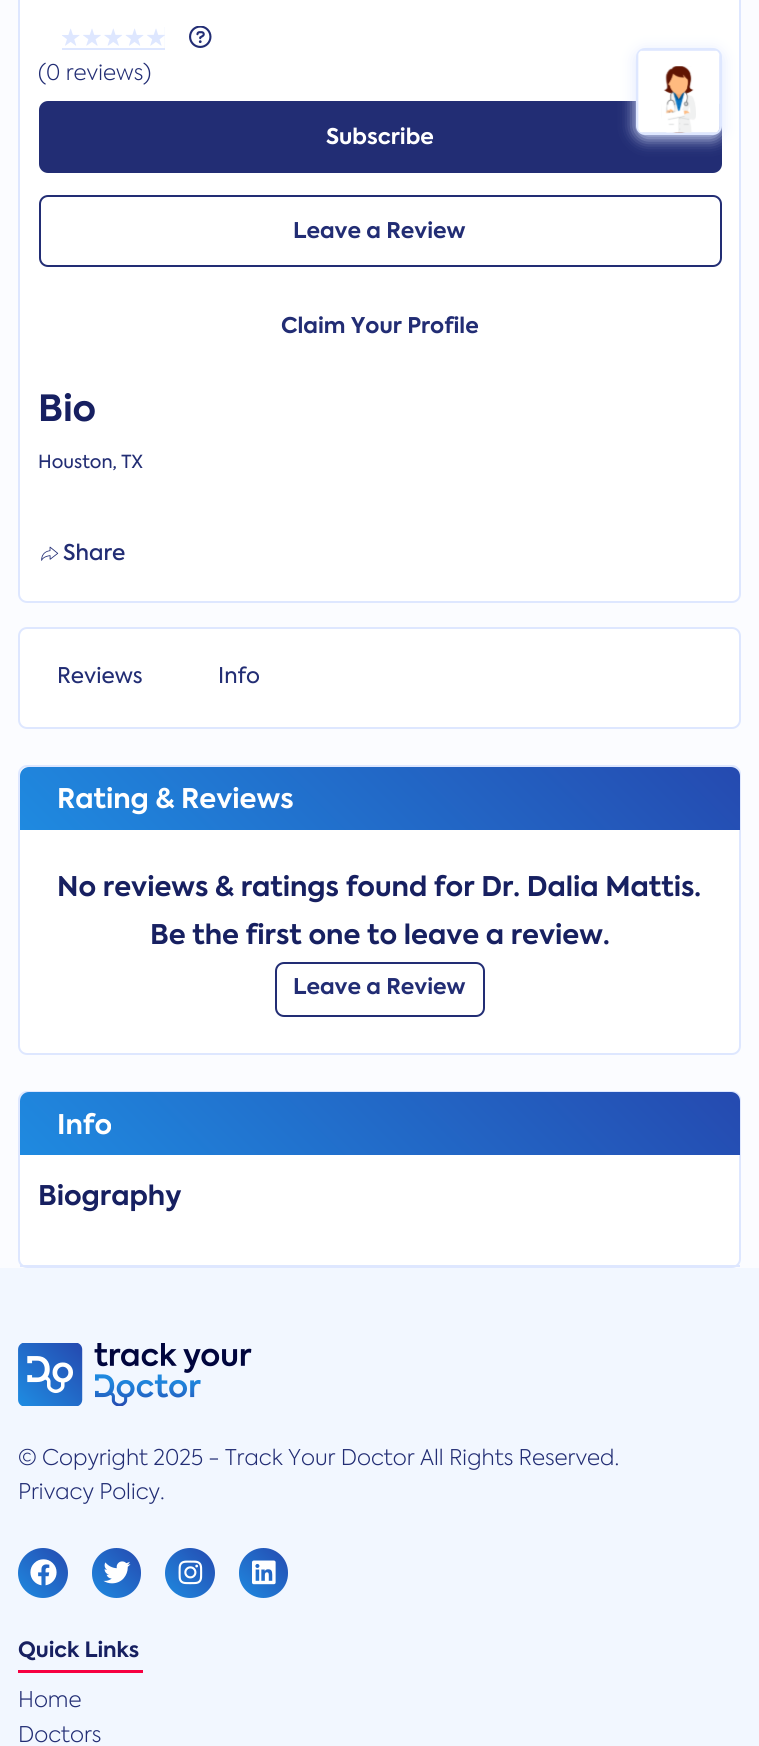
#include <cairo/cairo.h>
#include <math.h>
#include <stddef.h>


static void rounded_rect(cairo_t *cr, double x, double y, double w, double h, double r) {
  cairo_new_sub_path(cr);
  cairo_arc(cr, x + w - r, y + h - r, r, 0, M_PI / 2);
  cairo_arc(cr, x + r, y + h - r, r, M_PI / 2, M_PI);
  cairo_arc(cr, x + r, y + r, r, M_PI, 1.5 * M_PI);
  cairo_arc(cr, x + w - r, y + r, r, 1.5 * M_PI, 2 * M_PI);
  cairo_close_path(cr);
}

static void draw_shadow(cairo_t *cr, double x, double y, double w, double h, double r, double blur, double alpha) {
  cairo_push_group_with_content(cr, CAIRO_CONTENT_ALPHA);
  cairo_set_operator(cr, CAIRO_OPERATOR_SOURCE);
  for (int i = 15; i >= -15 && fmin(w, h) + blur * i / 3 > 0; i -= 2) {
    double e = blur * i / 6;
    cairo_set_source_rgba(cr, 0, 0, 0, alpha * erfc((i - 1) / 8.5) / 2);
    rounded_rect(cr, x - e, y - e, w + 2 * e, h + 2 * e, fmax(0, fmin(r + e + blur * .6, fmin(w, h) / 2 + e)));
    cairo_fill(cr);
  }
  cairo_pattern_t *soft = cairo_pop_group(cr);
  cairo_mask(cr, soft);
  cairo_pattern_destroy(soft);
}

static void draw_image(cairo_t *cr, const char *path, double x, double y, double w, double h) {
  cairo_surface_t *image = cairo_image_surface_create_from_png(path);
  cairo_save(cr);
  cairo_set_source_surface(cr, image, x, y);
  cairo_rectangle(cr, x, y, w, h);
  cairo_fill(cr);
  cairo_restore(cr);
  cairo_surface_destroy(image);
}

static void draw(cairo_t *cr) {
  cairo_pattern_t *gradient;
  cairo_set_source_rgb(cr, 251 / 255.0, 252 / 255.0, 1);
  cairo_paint(cr);
  cairo_set_source_rgb(cr, 1, 1, 1);
  rounded_rect(cr, 19, -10, 721, 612, 8);
  cairo_fill_preserve(cr);
  cairo_set_source_rgb(cr, 222 / 255.0, 231 / 255.0, 1);
  cairo_stroke(cr);
  draw_image(cr, "images/1.png", 189, 26, 23, 22);
  cairo_rectangle(cr, 62, 27, 103, 23);
  cairo_fill(cr);
  draw_image(cr, "images/2.png", 62, 27, 103, 21);
  cairo_set_source_rgb(cr, 34 / 255.0, 45 / 255.0, 116 / 255.0);
  rounded_rect(cr, 39, 101, 683, 72, 9);
  cairo_fill(cr);
  rounded_rect(cr, 40, 196, 681, 70, 8);
  cairo_stroke(cr);
  cairo_set_source_rgb(cr, 222 / 255.0, 231 / 255.0, 1);
  draw_shadow(cr, 636, 51, 86, 87, 9, 7.5, 1);
  rounded_rect(cr, 637, 49, 84, 85, 8);
  cairo_set_source_rgb(cr, 222 / 255.0, 231 / 255.0, 1);
  cairo_stroke(cr);
  draw_image(cr, "images/3.png", 638, 50, 82, 83);
  draw_image(cr, "images/4.png", 41, 546, 18, 15);
  cairo_set_source_rgb(cr, 1, 1, 1);
  rounded_rect(cr, 19, 628, 721, 100, 8);
  cairo_fill_preserve(cr);
  cairo_set_source_rgb(cr, 222 / 255.0, 231 / 255.0, 1);
  cairo_stroke(cr);
  cairo_set_source_rgb(cr, 1, 1, 1);
  rounded_rect(cr, 19, 766, 721, 288, 8);
  cairo_fill_preserve(cr);
  cairo_set_source_rgb(cr, 222 / 255.0, 231 / 255.0, 1);
  cairo_stroke(cr);
  gradient = cairo_pattern_create_linear(184, 994, 575, 602);
  cairo_pattern_add_color_stop_rgba(gradient, 0, 31 / 255.0, 138 / 255.0, 224 / 255.0, 1);
  cairo_pattern_add_color_stop_rgba(gradient, 1, 37 / 255.0, 74 / 255.0, 176 / 255.0, 1);
  cairo_set_source(cr, gradient);
  cairo_pattern_destroy(gradient);
  cairo_new_path(cr);
  cairo_move_to(cr, 29, 767);
  cairo_line_to(cr, 731, 767);
  cairo_curve_to(cr, 736, 767, 740, 771, 740, 776);
  cairo_line_to(cr, 740, 830);
  cairo_line_to(cr, 20, 830);
  cairo_line_to(cr, 20, 776);
  cairo_curve_to(cr, 20, 771, 24, 767, 29, 767);
  cairo_close_path(cr);
  cairo_fill(cr);
  rounded_rect(cr, 276, 963, 208, 53, 8);
  cairo_set_source_rgb(cr, 34 / 255.0, 45 / 255.0, 116 / 255.0);
  cairo_stroke(cr);
  cairo_set_source_rgb(cr, 1, 1, 1);
  rounded_rect(cr, 19, 1092, 721, 175, 8);
  cairo_fill_preserve(cr);
  cairo_set_source_rgb(cr, 222 / 255.0, 231 / 255.0, 1);
  cairo_stroke(cr);
  gradient = cairo_pattern_create_linear(184, 1319, 575, 928);
  cairo_pattern_add_color_stop_rgba(gradient, 0, 31 / 255.0, 138 / 255.0, 224 / 255.0, 1);
  cairo_pattern_add_color_stop_rgba(gradient, 1, 37 / 255.0, 74 / 255.0, 176 / 255.0, 1);
  cairo_set_source(cr, gradient);
  cairo_pattern_destroy(gradient);
  cairo_new_path(cr);
  cairo_move_to(cr, 29, 1092);
  cairo_line_to(cr, 731, 1092);
  cairo_curve_to(cr, 736, 1092, 740, 1096, 740, 1101);
  cairo_line_to(cr, 740, 1155);
  cairo_line_to(cr, 20, 1155);
  cairo_line_to(cr, 20, 1101);
  cairo_curve_to(cr, 20, 1096, 24, 1092, 29, 1092);
  cairo_close_path(cr);
  cairo_fill(cr);
  cairo_set_source_rgb(cr, 222 / 255.0, 231 / 255.0, 1);
  cairo_rectangle(cr, 20, 1265, 720, 2);
  cairo_fill(cr);
  cairo_set_source_rgb(cr, 242 / 255.0, 247 / 255.0, 1);
  cairo_rectangle(cr, 0, 1268, 759, 478);
  cairo_fill(cr);
  draw_image(cr, "images/5.png", 18, 1343, 234, 63);
  gradient = cairo_pattern_create_linear(18, 1598, 68, 1548);
  cairo_pattern_add_color_stop_rgba(gradient, 0, 31 / 255.0, 138 / 255.0, 224 / 255.0, 1);
  cairo_pattern_add_color_stop_rgba(gradient, 1, 37 / 255.0, 74 / 255.0, 176 / 255.0, 1);
  cairo_set_source(cr, gradient);
  cairo_pattern_destroy(gradient);
  cairo_arc(cr, 43, 1573, 25, 0, 2 * M_PI);
  cairo_fill(cr);
  draw_image(cr, "images/6.png", 30, 1559, 27, 27);
  gradient = cairo_pattern_create_linear(92, 1598, 141, 1548);
  cairo_pattern_add_color_stop_rgba(gradient, 0, 31 / 255.0, 138 / 255.0, 224 / 255.0, 1);
  cairo_pattern_add_color_stop_rgba(gradient, 1, 37 / 255.0, 74 / 255.0, 176 / 255.0, 1);
  cairo_set_source(cr, gradient);
  cairo_pattern_destroy(gradient);
  rounded_rect(cr, 92, 1548, 49, 50, 24.5);
  cairo_fill(cr);
  draw_image(cr, "images/7.png", 103, 1561, 28, 23);
  gradient = cairo_pattern_create_linear(165, 1598, 215, 1548);
  cairo_pattern_add_color_stop_rgba(gradient, 0, 31 / 255.0, 138 / 255.0, 224 / 255.0, 1);
  cairo_pattern_add_color_stop_rgba(gradient, 1, 37 / 255.0, 74 / 255.0, 176 / 255.0, 1);
  cairo_set_source(cr, gradient);
  cairo_pattern_destroy(gradient);
  cairo_arc(cr, 190, 1573, 25, 0, 2 * M_PI);
  cairo_fill(cr);
  draw_image(cr, "images/8.png", 178, 1560, 25, 25);
  gradient = cairo_pattern_create_linear(239, 1598, 288, 1548);
  cairo_pattern_add_color_stop_rgba(gradient, 0, 31 / 255.0, 138 / 255.0, 224 / 255.0, 1);
  cairo_pattern_add_color_stop_rgba(gradient, 1, 37 / 255.0, 74 / 255.0, 176 / 255.0, 1);
  cairo_set_source(cr, gradient);
  cairo_pattern_destroy(gradient);
  rounded_rect(cr, 239, 1548, 49, 50, 24.5);
  cairo_fill(cr);
  draw_image(cr, "images/9.png", 252, 1560, 24, 25);
  cairo_set_source_rgb(cr, 247 / 255.0, 0, 65 / 255.0);
  cairo_rectangle(cr, 18, 1670, 125, 3);
  cairo_fill(cr);
  cairo_select_font_face(cr, "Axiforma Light", CAIRO_FONT_SLANT_NORMAL, CAIRO_FONT_WEIGHT_NORMAL);
  cairo_set_font_size(cr, 21.6);
  cairo_set_source_rgb(cr, 34 / 255.0, 45 / 255.0, 116 / 255.0);
  cairo_move_to(cr, 38, 80);
  cairo_show_text(cr, "(0 reviews)");
  cairo_select_font_face(cr, "Axiforma", CAIRO_FONT_SLANT_NORMAL, CAIRO_FONT_WEIGHT_BOLD);
  cairo_set_source_rgb(cr, 1, 1, 1);
  cairo_move_to(cr, 326, 144);
  cairo_show_text(cr, "Subscribe");
  cairo_set_source_rgb(cr, 34 / 255.0, 45 / 255.0, 116 / 255.0);
  cairo_move_to(cr, 293, 238);
  cairo_show_text(cr, "Leave a Review");
  cairo_move_to(cr, 281, 333);
  cairo_show_text(cr, "Claim Your Profile");
  cairo_set_font_size(cr, 36);
  cairo_set_source_rgb(cr, 23 / 255.0, 32 / 255.0, 97 / 255.0);
  cairo_move_to(cr, 38, 421);
  cairo_show_text(cr, "Bio");
  cairo_select_font_face(cr, "Axiforma", CAIRO_FONT_SLANT_NORMAL, CAIRO_FONT_WEIGHT_NORMAL);
  cairo_set_font_size(cr, 18);
  cairo_set_source_rgb(cr, 34 / 255.0, 45 / 255.0, 116 / 255.0);
  cairo_move_to(cr, 38, 468);
  cairo_show_text(cr, "Houston, TX");
  cairo_select_font_face(cr, "Axiforma Medium", CAIRO_FONT_SLANT_NORMAL, CAIRO_FONT_WEIGHT_NORMAL);
  cairo_set_font_size(cr, 21.6);
  cairo_move_to(cr, 63, 560);
  cairo_show_text(cr, "Share");
  cairo_select_font_face(cr, "Axiforma", CAIRO_FONT_SLANT_NORMAL, CAIRO_FONT_WEIGHT_NORMAL);
  cairo_move_to(cr, 57, 683);
  cairo_show_text(cr, "Reviews");
  cairo_move_to(cr, 218, 683);
  cairo_show_text(cr, "Info");
  cairo_select_font_face(cr, "Axiforma", CAIRO_FONT_SLANT_NORMAL, CAIRO_FONT_WEIGHT_BOLD);
  cairo_set_font_size(cr, 27);
  cairo_set_source_rgb(cr, 1, 1, 1);
  cairo_move_to(cr, 57, 808);
  cairo_show_text(cr, "Rating & Reviews");
  cairo_set_source_rgb(cr, 23 / 255.0, 32 / 255.0, 97 / 255.0);
  cairo_move_to(cr, 57, 896);
  cairo_show_text(cr, "No reviews & ratings found for Dr. Dalia Mattis.");
  cairo_move_to(cr, 150, 944);
  cairo_show_text(cr, "Be the first one to leave a review.");
  cairo_set_font_size(cr, 21.6);
  cairo_set_source_rgb(cr, 34 / 255.0, 45 / 255.0, 116 / 255.0);
  cairo_move_to(cr, 293, 994);
  cairo_show_text(cr, "Leave a Review");
  cairo_set_font_size(cr, 27);
  cairo_set_source_rgb(cr, 1, 1, 1);
  cairo_move_to(cr, 57, 1134);
  cairo_show_text(cr, "Info");
  cairo_set_source_rgb(cr, 23 / 255.0, 32 / 255.0, 97 / 255.0);
  cairo_move_to(cr, 38, 1205);
  cairo_show_text(cr, "Biography");
  cairo_select_font_face(cr, "Axiforma Light", CAIRO_FONT_SLANT_NORMAL, CAIRO_FONT_WEIGHT_NORMAL);
  cairo_set_font_size(cr, 21.6);
  cairo_set_source_rgb(cr, 34 / 255.0, 45 / 255.0, 116 / 255.0);
  cairo_move_to(cr, 18, 1465);
  cairo_show_text(cr, "© Copyright 2025 - Track Your Doctor All Rights Reserved.");
  cairo_move_to(cr, 18, 1499);
  cairo_show_text(cr, "Privacy Policy.");
  cairo_select_font_face(cr, "Axiforma", CAIRO_FONT_SLANT_NORMAL, CAIRO_FONT_WEIGHT_BOLD);
  cairo_set_font_size(cr, 21);
  cairo_set_source_rgb(cr, 23 / 255.0, 32 / 255.0, 97 / 255.0);
  cairo_move_to(cr, 18, 1657);
  cairo_show_text(cr, "Quick Links");
  cairo_select_font_face(cr, "Axiforma Light", CAIRO_FONT_SLANT_NORMAL, CAIRO_FONT_WEIGHT_NORMAL);
  cairo_set_font_size(cr, 21.6);
  cairo_set_source_rgb(cr, 34 / 255.0, 45 / 255.0, 116 / 255.0);
  cairo_move_to(cr, 18, 1707);
  cairo_show_text(cr, "Home");
  cairo_move_to(cr, 18, 1742);
  cairo_show_text(cr, "Doctors");
}

int main(void) {
  cairo_surface_t *surface = cairo_image_surface_create(CAIRO_FORMAT_RGB24, 759, 1746);
  cairo_t *cr = cairo_create(surface);
  cairo_font_options_t *options = cairo_font_options_create();
  cairo_font_options_set_hint_metrics(options, CAIRO_HINT_METRICS_OFF);
  cairo_font_options_set_hint_style(options, CAIRO_HINT_STYLE_NONE);
  cairo_set_font_options(cr, options);
  cairo_set_miter_limit(cr, 4);
  draw(cr);
  cairo_surface_write_to_png(surface, "out.png");
  cairo_font_options_destroy(options);
  cairo_destroy(cr);
  cairo_surface_destroy(surface);
  return 0;
}
